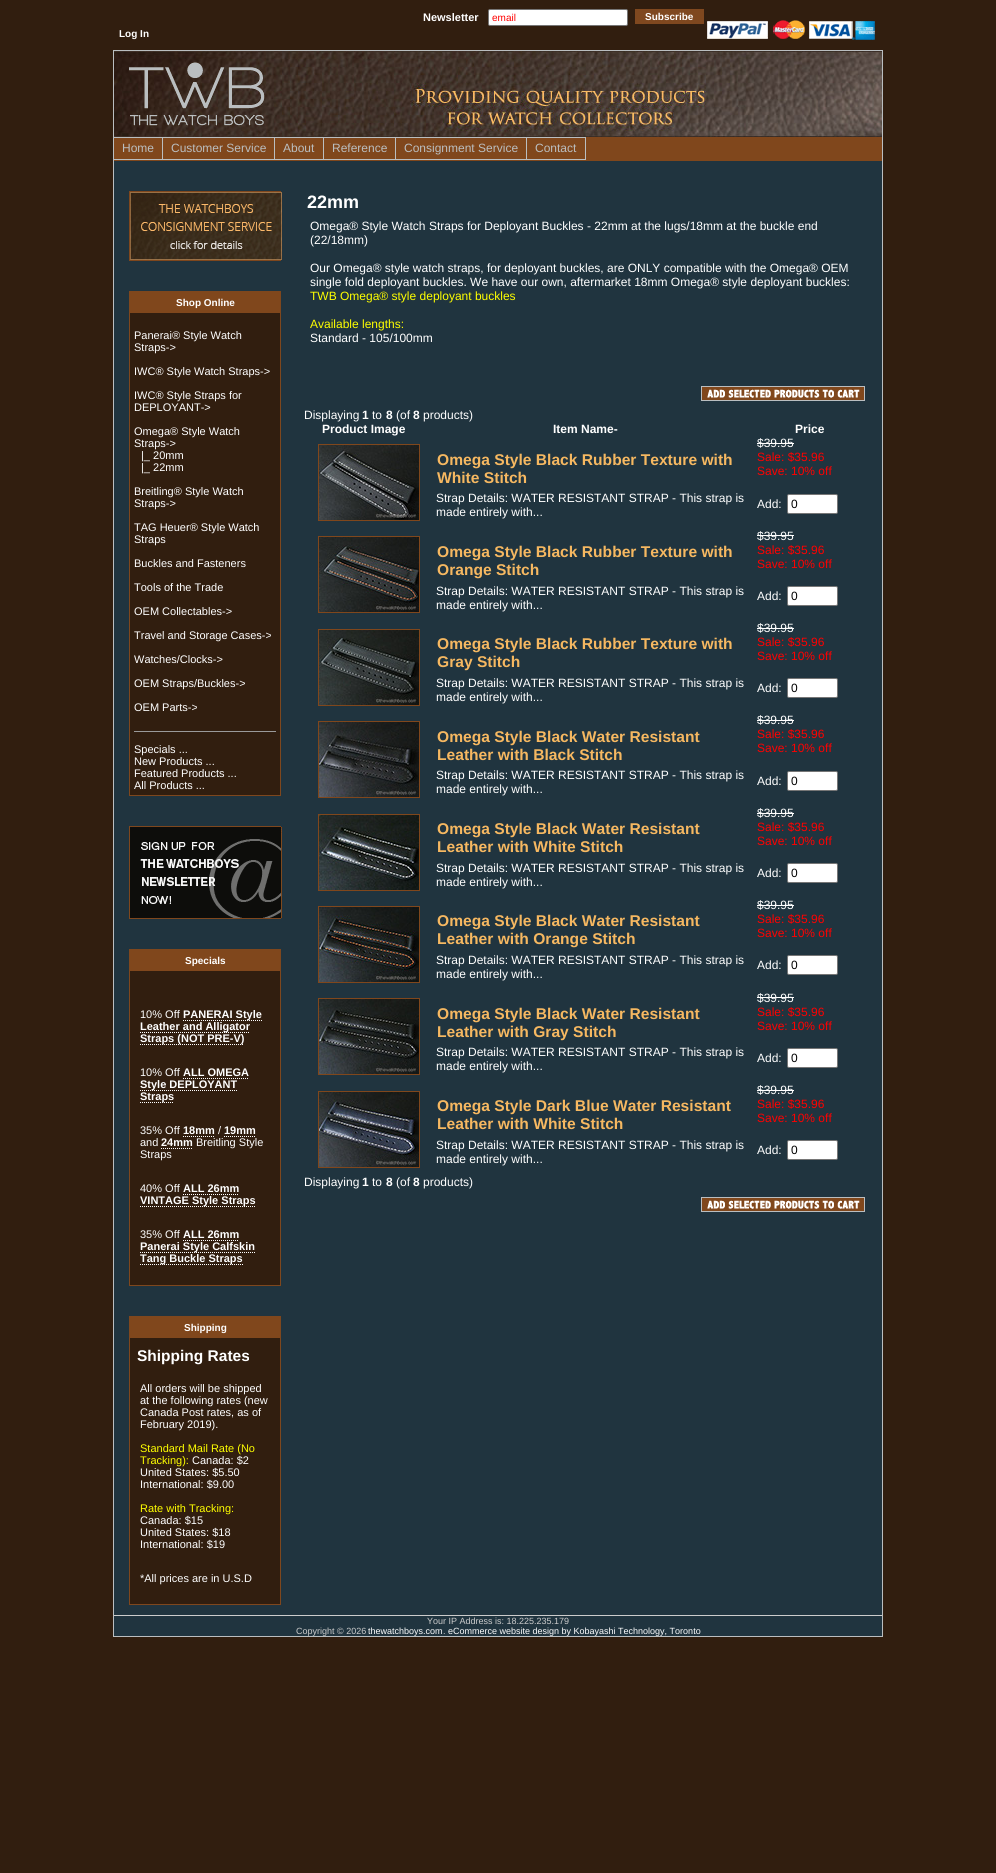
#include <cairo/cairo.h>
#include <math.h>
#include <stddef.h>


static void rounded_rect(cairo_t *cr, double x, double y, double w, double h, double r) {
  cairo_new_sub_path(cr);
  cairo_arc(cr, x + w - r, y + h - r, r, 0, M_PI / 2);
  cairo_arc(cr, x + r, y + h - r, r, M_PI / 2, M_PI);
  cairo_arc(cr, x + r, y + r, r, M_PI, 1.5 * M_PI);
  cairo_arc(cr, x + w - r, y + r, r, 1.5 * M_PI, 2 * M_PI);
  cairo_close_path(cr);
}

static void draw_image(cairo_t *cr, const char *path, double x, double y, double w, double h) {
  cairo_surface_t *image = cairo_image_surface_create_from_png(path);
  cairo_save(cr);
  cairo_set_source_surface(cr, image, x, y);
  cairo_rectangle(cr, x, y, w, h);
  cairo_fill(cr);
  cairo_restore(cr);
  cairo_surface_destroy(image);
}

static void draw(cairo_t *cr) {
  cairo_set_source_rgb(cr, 49 / 255.0, 30 / 255.0, 15 / 255.0);
  cairo_paint(cr);
  cairo_set_source_rgb(cr, 32 / 255.0, 52 / 255.0, 63 / 255.0);
  cairo_rectangle(cr, 114, 161, 768, 1475);
  cairo_fill(cr);
  cairo_rectangle(cr, 113.5, 50.5, 769, 1586);
  cairo_set_source_rgb(cr, 186 / 255.0, 190 / 255.0, 192 / 255.0);
  cairo_set_line_width(cr, 1);
  cairo_stroke(cr);
  draw_image(cr, "images/1.png", 114, 51, 768, 86);
  cairo_set_source_rgb(cr, 1, 1, 1);
  rounded_rect(cr, 488.5, 9.5, 139, 16, 1.5);
  cairo_fill_preserve(cr);
  cairo_set_source_rgb(cr, 118 / 255.0, 118 / 255.0, 118 / 255.0);
  cairo_stroke(cr);
  cairo_set_source_rgb(cr, 127 / 255.0, 72 / 255.0, 31 / 255.0);
  cairo_rectangle(cr, 635, 9, 69, 15);
  cairo_fill(cr);
  draw_image(cr, "images/2.png", 707, 20, 168, 20);
  draw_image(cr, "images/3.png", 129, 62, 136, 64);
  cairo_set_source_rgb(cr, 128 / 255.0, 71 / 255.0, 28 / 255.0);
  cairo_rectangle(cr, 114, 137, 768, 24);
  cairo_fill(cr);
  cairo_set_source_rgb(cr, 186 / 255.0, 190 / 255.0, 192 / 255.0);
  cairo_rectangle(cr, 114, 137, 49, 1);
  cairo_fill(cr);
  cairo_rectangle(cr, 114, 159, 49, 1);
  cairo_fill(cr);
  cairo_rectangle(cr, 162.5, 137.5, 112, 22);
  cairo_stroke(cr);
  cairo_rectangle(cr, 274.5, 137.5, 49, 22);
  cairo_stroke(cr);
  cairo_rectangle(cr, 323.5, 137.5, 72, 22);
  cairo_stroke(cr);
  cairo_rectangle(cr, 395.5, 137.5, 131, 22);
  cairo_stroke(cr);
  cairo_rectangle(cr, 526.5, 137.5, 59, 22);
  cairo_stroke(cr);
  cairo_rectangle(cr, 129.5, 191.5, 151, 69);
  cairo_set_source_rgb(cr, 127 / 255.0, 71 / 255.0, 29 / 255.0);
  cairo_stroke(cr);
  draw_image(cr, "images/4.png", 130, 192, 152, 68);
  cairo_set_source_rgb(cr, 49 / 255.0, 30 / 255.0, 15 / 255.0);
  cairo_rectangle(cr, 130, 313, 150, 482);
  cairo_fill(cr);
  cairo_rectangle(cr, 129.5, 291.5, 151, 504);
  cairo_set_source_rgb(cr, 127 / 255.0, 71 / 255.0, 29 / 255.0);
  cairo_stroke(cr);
  cairo_set_source_rgb(cr, 128 / 255.0, 71 / 255.0, 28 / 255.0);
  cairo_rectangle(cr, 130, 292, 150, 21);
  cairo_fill(cr);
  cairo_set_source_rgb(cr, 154 / 255.0, 154 / 255.0, 154 / 255.0);
  cairo_rectangle(cr, 134, 731, 142, 1);
  cairo_fill(cr);
  cairo_rectangle(cr, 129.5, 826.5, 151, 92);
  cairo_set_source_rgb(cr, 127 / 255.0, 71 / 255.0, 29 / 255.0);
  cairo_stroke(cr);
  draw_image(cr, "images/5.png", 130, 827, 152, 91);
  cairo_set_source_rgb(cr, 49 / 255.0, 30 / 255.0, 15 / 255.0);
  cairo_rectangle(cr, 130, 971, 150, 314);
  cairo_fill(cr);
  cairo_rectangle(cr, 129.5, 949.5, 151, 336);
  cairo_set_source_rgb(cr, 127 / 255.0, 71 / 255.0, 29 / 255.0);
  cairo_stroke(cr);
  cairo_set_source_rgb(cr, 128 / 255.0, 71 / 255.0, 28 / 255.0);
  cairo_rectangle(cr, 130, 950, 150, 21);
  cairo_fill(cr);
  cairo_new_path(cr);
  cairo_move_to(cr, 183, 1020.5);
  cairo_line_to(cr, 262, 1020.5);
  cairo_set_source_rgb(cr, 1, 1, 1);
  cairo_set_dash(cr, (double[]){1, 1}, 2, 0);
  cairo_stroke(cr);
  cairo_new_path(cr);
  cairo_move_to(cr, 140, 1032.5);
  cairo_line_to(cr, 250, 1032.5);
  cairo_stroke(cr);
  cairo_new_path(cr);
  cairo_move_to(cr, 140, 1044.5);
  cairo_line_to(cr, 244, 1044.5);
  cairo_stroke(cr);
  cairo_new_path(cr);
  cairo_move_to(cr, 183, 1078.5);
  cairo_line_to(cr, 249, 1078.5);
  cairo_stroke(cr);
  cairo_new_path(cr);
  cairo_move_to(cr, 140, 1090.5);
  cairo_line_to(cr, 237, 1090.5);
  cairo_stroke(cr);
  cairo_new_path(cr);
  cairo_move_to(cr, 140, 1102.5);
  cairo_line_to(cr, 174, 1102.5);
  cairo_stroke(cr);
  cairo_new_path(cr);
  cairo_move_to(cr, 183, 1136.5);
  cairo_line_to(cr, 214, 1136.5);
  cairo_stroke(cr);
  cairo_new_path(cr);
  cairo_move_to(cr, 224, 1136.5);
  cairo_line_to(cr, 255, 1136.5);
  cairo_stroke(cr);
  cairo_new_path(cr);
  cairo_move_to(cr, 161, 1148.5);
  cairo_line_to(cr, 193, 1148.5);
  cairo_stroke(cr);
  cairo_new_path(cr);
  cairo_move_to(cr, 183, 1194.5);
  cairo_line_to(cr, 239, 1194.5);
  cairo_stroke(cr);
  cairo_new_path(cr);
  cairo_move_to(cr, 140, 1206.5);
  cairo_line_to(cr, 255, 1206.5);
  cairo_stroke(cr);
  cairo_new_path(cr);
  cairo_move_to(cr, 183, 1240.5);
  cairo_line_to(cr, 239, 1240.5);
  cairo_stroke(cr);
  cairo_new_path(cr);
  cairo_move_to(cr, 140, 1252.5);
  cairo_line_to(cr, 255, 1252.5);
  cairo_stroke(cr);
  cairo_new_path(cr);
  cairo_move_to(cr, 140, 1264.5);
  cairo_line_to(cr, 243, 1264.5);
  cairo_stroke(cr);
  cairo_set_source_rgb(cr, 49 / 255.0, 30 / 255.0, 15 / 255.0);
  cairo_rectangle(cr, 130, 1338, 150, 266);
  cairo_fill(cr);
  cairo_rectangle(cr, 129.5, 1316.5, 151, 288);
  cairo_set_source_rgb(cr, 127 / 255.0, 71 / 255.0, 29 / 255.0);
  cairo_set_dash(cr, NULL, 0, 0);
  cairo_stroke(cr);
  cairo_set_source_rgb(cr, 128 / 255.0, 71 / 255.0, 28 / 255.0);
  cairo_rectangle(cr, 130, 1317, 150, 21);
  cairo_fill(cr);
  draw_image(cr, "images/6.png", 701, 386, 164, 15);
  cairo_rectangle(cr, 318.5, 444.5, 101, 76);
  cairo_stroke(cr);
  draw_image(cr, "images/7.png", 319, 445, 100, 75);
  cairo_set_source_rgb(cr, 1, 1, 1);
  cairo_rectangle(cr, 757, 443, 37, 1);
  cairo_fill(cr);
  rounded_rect(cr, 787.5, 494.5, 50, 19, 1.5);
  cairo_fill_preserve(cr);
  cairo_set_source_rgb(cr, 118 / 255.0, 118 / 255.0, 118 / 255.0);
  cairo_stroke(cr);
  cairo_rectangle(cr, 318.5, 536.5, 101, 76);
  cairo_set_source_rgb(cr, 128 / 255.0, 71 / 255.0, 28 / 255.0);
  cairo_stroke(cr);
  draw_image(cr, "images/8.png", 319, 537, 100, 75);
  cairo_set_source_rgb(cr, 1, 1, 1);
  cairo_rectangle(cr, 757, 535, 37, 1);
  cairo_fill(cr);
  rounded_rect(cr, 787.5, 586.5, 50, 19, 1.5);
  cairo_fill_preserve(cr);
  cairo_set_source_rgb(cr, 118 / 255.0, 118 / 255.0, 118 / 255.0);
  cairo_stroke(cr);
  cairo_rectangle(cr, 318.5, 629.5, 101, 76);
  cairo_set_source_rgb(cr, 128 / 255.0, 71 / 255.0, 28 / 255.0);
  cairo_stroke(cr);
  draw_image(cr, "images/9.png", 319, 630, 100, 75);
  cairo_set_source_rgb(cr, 1, 1, 1);
  cairo_rectangle(cr, 757, 628, 37, 1);
  cairo_fill(cr);
  rounded_rect(cr, 787.5, 678.5, 50, 19, 1.5);
  cairo_fill_preserve(cr);
  cairo_set_source_rgb(cr, 118 / 255.0, 118 / 255.0, 118 / 255.0);
  cairo_stroke(cr);
  cairo_rectangle(cr, 318.5, 721.5, 101, 76);
  cairo_set_source_rgb(cr, 128 / 255.0, 71 / 255.0, 28 / 255.0);
  cairo_stroke(cr);
  draw_image(cr, "images/10.png", 319, 722, 100, 75);
  cairo_set_source_rgb(cr, 1, 1, 1);
  cairo_rectangle(cr, 757, 720, 37, 1);
  cairo_fill(cr);
  rounded_rect(cr, 787.5, 771.5, 50, 19, 1.5);
  cairo_fill_preserve(cr);
  cairo_set_source_rgb(cr, 118 / 255.0, 118 / 255.0, 118 / 255.0);
  cairo_stroke(cr);
  cairo_rectangle(cr, 318.5, 814.5, 101, 76);
  cairo_set_source_rgb(cr, 128 / 255.0, 71 / 255.0, 28 / 255.0);
  cairo_stroke(cr);
  draw_image(cr, "images/11.png", 319, 815, 100, 75);
  cairo_set_source_rgb(cr, 1, 1, 1);
  cairo_rectangle(cr, 757, 813, 37, 1);
  cairo_fill(cr);
  rounded_rect(cr, 787.5, 863.5, 50, 19, 1.5);
  cairo_fill_preserve(cr);
  cairo_set_source_rgb(cr, 118 / 255.0, 118 / 255.0, 118 / 255.0);
  cairo_stroke(cr);
  cairo_rectangle(cr, 318.5, 906.5, 101, 76);
  cairo_set_source_rgb(cr, 128 / 255.0, 71 / 255.0, 28 / 255.0);
  cairo_stroke(cr);
  draw_image(cr, "images/12.png", 319, 907, 100, 75);
  cairo_set_source_rgb(cr, 1, 1, 1);
  cairo_rectangle(cr, 757, 905, 37, 1);
  cairo_fill(cr);
  rounded_rect(cr, 787.5, 955.5, 50, 19, 1.5);
  cairo_fill_preserve(cr);
  cairo_set_source_rgb(cr, 118 / 255.0, 118 / 255.0, 118 / 255.0);
  cairo_stroke(cr);
  cairo_rectangle(cr, 318.5, 998.5, 101, 76);
  cairo_set_source_rgb(cr, 128 / 255.0, 71 / 255.0, 28 / 255.0);
  cairo_stroke(cr);
  draw_image(cr, "images/13.png", 319, 999, 100, 75);
  cairo_set_source_rgb(cr, 1, 1, 1);
  cairo_rectangle(cr, 757, 997, 37, 1);
  cairo_fill(cr);
  rounded_rect(cr, 787.5, 1048.5, 50, 19, 1.5);
  cairo_fill_preserve(cr);
  cairo_set_source_rgb(cr, 118 / 255.0, 118 / 255.0, 118 / 255.0);
  cairo_stroke(cr);
  cairo_rectangle(cr, 318.5, 1091.5, 101, 76);
  cairo_set_source_rgb(cr, 128 / 255.0, 71 / 255.0, 28 / 255.0);
  cairo_stroke(cr);
  draw_image(cr, "images/14.png", 319, 1092, 100, 75);
  cairo_set_source_rgb(cr, 1, 1, 1);
  cairo_rectangle(cr, 757, 1090, 37, 1);
  cairo_fill(cr);
  rounded_rect(cr, 787.5, 1140.5, 50, 19, 1.5);
  cairo_fill_preserve(cr);
  cairo_set_source_rgb(cr, 118 / 255.0, 118 / 255.0, 118 / 255.0);
  cairo_stroke(cr);
  draw_image(cr, "images/6.png", 701, 1197, 164, 15);
  cairo_set_source_rgb(cr, 204 / 255.0, 204 / 255.0, 204 / 255.0);
  cairo_rectangle(cr, 114, 1615, 768, 1);
  cairo_fill(cr);
  cairo_select_font_face(cr, "Liberation Sans", CAIRO_FONT_SLANT_NORMAL, CAIRO_FONT_WEIGHT_BOLD);
  cairo_set_font_size(cr, 11);
  cairo_set_source_rgb(cr, 1, 1, 1);
  cairo_move_to(cr, 423, 21);
  cairo_show_text(cr, "Newsletter");
  cairo_select_font_face(cr, "Liberation Sans", CAIRO_FONT_SLANT_NORMAL, CAIRO_FONT_WEIGHT_NORMAL);
  cairo_set_font_size(cr, 10);
  cairo_set_source_rgb(cr, 1, 0, 0);
  cairo_move_to(cr, 492, 21);
  cairo_show_text(cr, "email");
  cairo_select_font_face(cr, "Liberation Sans", CAIRO_FONT_SLANT_NORMAL, CAIRO_FONT_WEIGHT_BOLD);
  cairo_set_source_rgb(cr, 1, 1, 1);
  cairo_move_to(cr, 645, 20);
  cairo_show_text(cr, "Subscribe");
  cairo_move_to(cr, 119, 37);
  cairo_show_text(cr, "Log In");
  cairo_select_font_face(cr, "Liberation Sans", CAIRO_FONT_SLANT_NORMAL, CAIRO_FONT_WEIGHT_NORMAL);
  cairo_set_font_size(cr, 12);
  cairo_set_source_rgb(cr, 186 / 255.0, 190 / 255.0, 192 / 255.0);
  cairo_move_to(cr, 122, 152);
  cairo_show_text(cr, "Home");
  cairo_move_to(cr, 171, 152);
  cairo_show_text(cr, "Customer Service");
  cairo_move_to(cr, 283, 152);
  cairo_show_text(cr, "About");
  cairo_move_to(cr, 332, 152);
  cairo_show_text(cr, "Reference");
  cairo_move_to(cr, 404, 152);
  cairo_show_text(cr, "Consignment Service");
  cairo_move_to(cr, 535, 152);
  cairo_show_text(cr, "Contact");
  cairo_select_font_face(cr, "Liberation Sans", CAIRO_FONT_SLANT_NORMAL, CAIRO_FONT_WEIGHT_BOLD);
  cairo_set_font_size(cr, 10);
  cairo_set_source_rgb(cr, 1, 1, 1);
  cairo_move_to(cr, 176, 306);
  cairo_show_text(cr, "Shop Online");
  cairo_select_font_face(cr, "Liberation Sans", CAIRO_FONT_SLANT_NORMAL, CAIRO_FONT_WEIGHT_NORMAL);
  cairo_set_font_size(cr, 11);
  cairo_move_to(cr, 134, 339);
  cairo_show_text(cr, "Panerai® Style Watch");
  cairo_move_to(cr, 134, 351);
  cairo_show_text(cr, "Straps->");
  cairo_move_to(cr, 134, 375);
  cairo_show_text(cr, "IWC® Style Watch Straps->");
  cairo_move_to(cr, 134, 399);
  cairo_show_text(cr, "IWC® Style Straps for");
  cairo_move_to(cr, 134, 411);
  cairo_show_text(cr, "DEPLOYANT->");
  cairo_move_to(cr, 134, 435);
  cairo_show_text(cr, "Omega® Style Watch");
  cairo_move_to(cr, 134, 447);
  cairo_show_text(cr, "Straps->");
  cairo_move_to(cr, 141, 459);
  cairo_show_text(cr, "|_ 20mm");
  cairo_move_to(cr, 141, 471);
  cairo_show_text(cr, "|_ 22mm");
  cairo_move_to(cr, 134, 495);
  cairo_show_text(cr, "Breitling® Style Watch");
  cairo_move_to(cr, 134, 507);
  cairo_show_text(cr, "Straps->");
  cairo_move_to(cr, 134, 531);
  cairo_show_text(cr, "TAG Heuer® Style Watch");
  cairo_move_to(cr, 134, 543);
  cairo_show_text(cr, "Straps");
  cairo_move_to(cr, 134, 567);
  cairo_show_text(cr, "Buckles and Fasteners");
  cairo_move_to(cr, 134, 591);
  cairo_show_text(cr, "Tools of the Trade");
  cairo_move_to(cr, 134, 615);
  cairo_show_text(cr, "OEM Collectables->");
  cairo_move_to(cr, 134, 639);
  cairo_show_text(cr, "Travel and Storage Cases->");
  cairo_move_to(cr, 134, 663);
  cairo_show_text(cr, "Watches/Clocks->");
  cairo_move_to(cr, 134, 687);
  cairo_show_text(cr, "OEM Straps/Buckles->");
  cairo_move_to(cr, 134, 711);
  cairo_show_text(cr, "OEM Parts->");
  cairo_move_to(cr, 134, 753);
  cairo_show_text(cr, "Specials ...");
  cairo_move_to(cr, 134, 765);
  cairo_show_text(cr, "New Products ...");
  cairo_move_to(cr, 134, 777);
  cairo_show_text(cr, "Featured Products ...");
  cairo_move_to(cr, 134, 789);
  cairo_show_text(cr, "All Products ...");
  cairo_select_font_face(cr, "Liberation Sans", CAIRO_FONT_SLANT_NORMAL, CAIRO_FONT_WEIGHT_BOLD);
  cairo_set_font_size(cr, 10);
  cairo_move_to(cr, 185, 964);
  cairo_show_text(cr, "Specials");
  cairo_select_font_face(cr, "Liberation Sans", CAIRO_FONT_SLANT_NORMAL, CAIRO_FONT_WEIGHT_NORMAL);
  cairo_set_font_size(cr, 11);
  cairo_move_to(cr, 140, 1018);
  cairo_show_text(cr, "10% Off");
  cairo_select_font_face(cr, "Liberation Sans", CAIRO_FONT_SLANT_NORMAL, CAIRO_FONT_WEIGHT_BOLD);
  cairo_move_to(cr, 183, 1018);
  cairo_show_text(cr, "PANERAI Style");
  cairo_move_to(cr, 140, 1030);
  cairo_show_text(cr, "Leather and Alligator");
  cairo_move_to(cr, 140, 1042);
  cairo_show_text(cr, "Straps (NOT PRE-V)");
  cairo_select_font_face(cr, "Liberation Sans", CAIRO_FONT_SLANT_NORMAL, CAIRO_FONT_WEIGHT_NORMAL);
  cairo_move_to(cr, 140, 1076);
  cairo_show_text(cr, "10% Off");
  cairo_select_font_face(cr, "Liberation Sans", CAIRO_FONT_SLANT_NORMAL, CAIRO_FONT_WEIGHT_BOLD);
  cairo_move_to(cr, 183, 1076);
  cairo_show_text(cr, "ALL OMEGA");
  cairo_move_to(cr, 140, 1088);
  cairo_show_text(cr, "Style DEPLOYANT");
  cairo_move_to(cr, 140, 1100);
  cairo_show_text(cr, "Straps");
  cairo_select_font_face(cr, "Liberation Sans", CAIRO_FONT_SLANT_NORMAL, CAIRO_FONT_WEIGHT_NORMAL);
  cairo_move_to(cr, 140, 1134);
  cairo_show_text(cr, "35% Off");
  cairo_select_font_face(cr, "Liberation Sans", CAIRO_FONT_SLANT_NORMAL, CAIRO_FONT_WEIGHT_BOLD);
  cairo_move_to(cr, 183, 1134);
  cairo_show_text(cr, "18mm");
  cairo_select_font_face(cr, "Liberation Sans", CAIRO_FONT_SLANT_NORMAL, CAIRO_FONT_WEIGHT_NORMAL);
  cairo_move_to(cr, 218, 1134);
  cairo_show_text(cr, "/");
  cairo_select_font_face(cr, "Liberation Sans", CAIRO_FONT_SLANT_NORMAL, CAIRO_FONT_WEIGHT_BOLD);
  cairo_move_to(cr, 224, 1134);
  cairo_show_text(cr, "19mm");
  cairo_select_font_face(cr, "Liberation Sans", CAIRO_FONT_SLANT_NORMAL, CAIRO_FONT_WEIGHT_NORMAL);
  cairo_move_to(cr, 140, 1146);
  cairo_show_text(cr, "and");
  cairo_select_font_face(cr, "Liberation Sans", CAIRO_FONT_SLANT_NORMAL, CAIRO_FONT_WEIGHT_BOLD);
  cairo_move_to(cr, 161, 1146);
  cairo_show_text(cr, "24mm");
  cairo_select_font_face(cr, "Liberation Sans", CAIRO_FONT_SLANT_NORMAL, CAIRO_FONT_WEIGHT_NORMAL);
  cairo_move_to(cr, 196, 1146);
  cairo_show_text(cr, "Breitling Style");
  cairo_move_to(cr, 140, 1158);
  cairo_show_text(cr, "Straps");
  cairo_move_to(cr, 140, 1192);
  cairo_show_text(cr, "40% Off");
  cairo_select_font_face(cr, "Liberation Sans", CAIRO_FONT_SLANT_NORMAL, CAIRO_FONT_WEIGHT_BOLD);
  cairo_move_to(cr, 183, 1192);
  cairo_show_text(cr, "ALL 26mm");
  cairo_move_to(cr, 140, 1204);
  cairo_show_text(cr, "VINTAGE Style Straps");
  cairo_select_font_face(cr, "Liberation Sans", CAIRO_FONT_SLANT_NORMAL, CAIRO_FONT_WEIGHT_NORMAL);
  cairo_move_to(cr, 140, 1238);
  cairo_show_text(cr, "35% Off");
  cairo_select_font_face(cr, "Liberation Sans", CAIRO_FONT_SLANT_NORMAL, CAIRO_FONT_WEIGHT_BOLD);
  cairo_move_to(cr, 183, 1238);
  cairo_show_text(cr, "ALL 26mm");
  cairo_move_to(cr, 140, 1250);
  cairo_show_text(cr, "Panerai Style Calfskin");
  cairo_move_to(cr, 140, 1262);
  cairo_show_text(cr, "Tang Buckle Straps");
  cairo_set_font_size(cr, 10);
  cairo_move_to(cr, 184, 1331);
  cairo_show_text(cr, "Shipping");
  cairo_set_font_size(cr, 15.5);
  cairo_move_to(cr, 137, 1361);
  cairo_show_text(cr, "Shipping Rates");
  cairo_select_font_face(cr, "Liberation Sans", CAIRO_FONT_SLANT_NORMAL, CAIRO_FONT_WEIGHT_NORMAL);
  cairo_set_font_size(cr, 11);
  cairo_move_to(cr, 140, 1392);
  cairo_show_text(cr, "All orders will be shipped");
  cairo_move_to(cr, 140, 1404);
  cairo_show_text(cr, "at the following rates (new");
  cairo_move_to(cr, 140, 1416);
  cairo_show_text(cr, "Canada Post rates, as of");
  cairo_move_to(cr, 140, 1428);
  cairo_show_text(cr, "February 2019).");
  cairo_set_source_rgb(cr, 1, 1, 0);
  cairo_move_to(cr, 140, 1452);
  cairo_show_text(cr, "Standard Mail Rate (No");
  cairo_move_to(cr, 140, 1464);
  cairo_show_text(cr, "Tracking):");
  cairo_set_source_rgb(cr, 1, 1, 1);
  cairo_move_to(cr, 192, 1464);
  cairo_show_text(cr, "Canada: $2");
  cairo_move_to(cr, 140, 1476);
  cairo_show_text(cr, "United States: $5.50");
  cairo_move_to(cr, 140, 1488);
  cairo_show_text(cr, "International: $9.00");
  cairo_set_source_rgb(cr, 1, 1, 0);
  cairo_move_to(cr, 140, 1512);
  cairo_show_text(cr, "Rate with Tracking:");
  cairo_set_source_rgb(cr, 1, 1, 1);
  cairo_move_to(cr, 140, 1524);
  cairo_show_text(cr, "Canada: $15");
  cairo_move_to(cr, 140, 1536);
  cairo_show_text(cr, "United States: $18");
  cairo_move_to(cr, 140, 1548);
  cairo_show_text(cr, "International: $19");
  cairo_move_to(cr, 140, 1582);
  cairo_show_text(cr, "*All prices are in U.S.D");
  cairo_select_font_face(cr, "Liberation Sans", CAIRO_FONT_SLANT_NORMAL, CAIRO_FONT_WEIGHT_BOLD);
  cairo_set_font_size(cr, 18);
  cairo_move_to(cr, 307, 208);
  cairo_show_text(cr, "22mm");
  cairo_select_font_face(cr, "Liberation Sans", CAIRO_FONT_SLANT_NORMAL, CAIRO_FONT_WEIGHT_NORMAL);
  cairo_set_font_size(cr, 12);
  cairo_move_to(cr, 310, 230);
  cairo_show_text(cr, "Omega® Style Watch Straps for Deployant Buckles - 22mm at the lugs/18mm at the buckle end");
  cairo_move_to(cr, 310, 244);
  cairo_show_text(cr, "(22/18mm)");
  cairo_move_to(cr, 310, 272);
  cairo_show_text(cr, "Our Omega® style watch straps, for deployant buckles, are ONLY compatible with the Omega® OEM");
  cairo_move_to(cr, 310, 286);
  cairo_show_text(cr, "single fold deployant buckles. We have our own, aftermarket 18mm Omega® style deployant buckles:");
  cairo_set_source_rgb(cr, 1, 1, 0);
  cairo_move_to(cr, 310, 300);
  cairo_show_text(cr, "TWB Omega® style deployant buckles");
  cairo_move_to(cr, 310, 328);
  cairo_show_text(cr, "Available lengths:");
  cairo_set_source_rgb(cr, 1, 1, 1);
  cairo_move_to(cr, 310, 342);
  cairo_show_text(cr, "Standard - 105/100mm");
  cairo_move_to(cr, 304, 419);
  cairo_show_text(cr, "Displaying");
  cairo_select_font_face(cr, "Liberation Sans", CAIRO_FONT_SLANT_NORMAL, CAIRO_FONT_WEIGHT_BOLD);
  cairo_move_to(cr, 362, 419);
  cairo_show_text(cr, "1");
  cairo_select_font_face(cr, "Liberation Sans", CAIRO_FONT_SLANT_NORMAL, CAIRO_FONT_WEIGHT_NORMAL);
  cairo_move_to(cr, 372, 419);
  cairo_show_text(cr, "to");
  cairo_select_font_face(cr, "Liberation Sans", CAIRO_FONT_SLANT_NORMAL, CAIRO_FONT_WEIGHT_BOLD);
  cairo_move_to(cr, 386, 419);
  cairo_show_text(cr, "8");
  cairo_select_font_face(cr, "Liberation Sans", CAIRO_FONT_SLANT_NORMAL, CAIRO_FONT_WEIGHT_NORMAL);
  cairo_move_to(cr, 396, 419);
  cairo_show_text(cr, "(of");
  cairo_select_font_face(cr, "Liberation Sans", CAIRO_FONT_SLANT_NORMAL, CAIRO_FONT_WEIGHT_BOLD);
  cairo_move_to(cr, 413, 419);
  cairo_show_text(cr, "8");
  cairo_select_font_face(cr, "Liberation Sans", CAIRO_FONT_SLANT_NORMAL, CAIRO_FONT_WEIGHT_NORMAL);
  cairo_move_to(cr, 423, 419);
  cairo_show_text(cr, "products)");
  cairo_select_font_face(cr, "Liberation Sans", CAIRO_FONT_SLANT_NORMAL, CAIRO_FONT_WEIGHT_BOLD);
  cairo_move_to(cr, 322, 433);
  cairo_show_text(cr, "Product Image");
  cairo_move_to(cr, 553, 433);
  cairo_show_text(cr, "Item Name-");
  cairo_move_to(cr, 795, 433);
  cairo_show_text(cr, "Price");
  cairo_set_font_size(cr, 15.6);
  cairo_set_source_rgb(cr, 246 / 255.0, 184 / 255.0, 97 / 255.0);
  cairo_move_to(cr, 437, 465);
  cairo_show_text(cr, "Omega Style Black Rubber Texture with");
  cairo_move_to(cr, 437, 483);
  cairo_show_text(cr, "White Stitch");
  cairo_select_font_face(cr, "Liberation Sans", CAIRO_FONT_SLANT_NORMAL, CAIRO_FONT_WEIGHT_NORMAL);
  cairo_set_font_size(cr, 12);
  cairo_set_source_rgb(cr, 1, 1, 1);
  cairo_move_to(cr, 436, 502);
  cairo_show_text(cr, "Strap Details: WATER RESISTANT STRAP - This strap is");
  cairo_move_to(cr, 436, 516);
  cairo_show_text(cr, "made entirely with...");
  cairo_move_to(cr, 757, 447);
  cairo_show_text(cr, "$39.95");
  cairo_set_source_rgb(cr, 1, 0, 0);
  cairo_move_to(cr, 757, 461);
  cairo_show_text(cr, "Sale: $35.96");
  cairo_move_to(cr, 757, 475);
  cairo_show_text(cr, "Save: 10% off");
  cairo_set_source_rgb(cr, 1, 1, 1);
  cairo_move_to(cr, 757, 508);
  cairo_show_text(cr, "Add:");
  cairo_set_source_rgb(cr, 0, 0, 0);
  cairo_move_to(cr, 791, 508);
  cairo_show_text(cr, "0");
  cairo_select_font_face(cr, "Liberation Sans", CAIRO_FONT_SLANT_NORMAL, CAIRO_FONT_WEIGHT_BOLD);
  cairo_set_font_size(cr, 15.6);
  cairo_set_source_rgb(cr, 246 / 255.0, 184 / 255.0, 97 / 255.0);
  cairo_move_to(cr, 437, 557);
  cairo_show_text(cr, "Omega Style Black Rubber Texture with");
  cairo_move_to(cr, 437, 575);
  cairo_show_text(cr, "Orange Stitch");
  cairo_select_font_face(cr, "Liberation Sans", CAIRO_FONT_SLANT_NORMAL, CAIRO_FONT_WEIGHT_NORMAL);
  cairo_set_font_size(cr, 12);
  cairo_set_source_rgb(cr, 1, 1, 1);
  cairo_move_to(cr, 436, 595);
  cairo_show_text(cr, "Strap Details: WATER RESISTANT STRAP - This strap is");
  cairo_move_to(cr, 436, 609);
  cairo_show_text(cr, "made entirely with...");
  cairo_move_to(cr, 757, 540);
  cairo_show_text(cr, "$39.95");
  cairo_set_source_rgb(cr, 1, 0, 0);
  cairo_move_to(cr, 757, 554);
  cairo_show_text(cr, "Sale: $35.96");
  cairo_move_to(cr, 757, 568);
  cairo_show_text(cr, "Save: 10% off");
  cairo_set_source_rgb(cr, 1, 1, 1);
  cairo_move_to(cr, 757, 600);
  cairo_show_text(cr, "Add:");
  cairo_set_source_rgb(cr, 0, 0, 0);
  cairo_move_to(cr, 791, 600);
  cairo_show_text(cr, "0");
  cairo_select_font_face(cr, "Liberation Sans", CAIRO_FONT_SLANT_NORMAL, CAIRO_FONT_WEIGHT_BOLD);
  cairo_set_font_size(cr, 15.6);
  cairo_set_source_rgb(cr, 246 / 255.0, 184 / 255.0, 97 / 255.0);
  cairo_move_to(cr, 437, 649);
  cairo_show_text(cr, "Omega Style Black Rubber Texture with");
  cairo_move_to(cr, 437, 667);
  cairo_show_text(cr, "Gray Stitch");
  cairo_select_font_face(cr, "Liberation Sans", CAIRO_FONT_SLANT_NORMAL, CAIRO_FONT_WEIGHT_NORMAL);
  cairo_set_font_size(cr, 12);
  cairo_set_source_rgb(cr, 1, 1, 1);
  cairo_move_to(cr, 436, 687);
  cairo_show_text(cr, "Strap Details: WATER RESISTANT STRAP - This strap is");
  cairo_move_to(cr, 436, 701);
  cairo_show_text(cr, "made entirely with...");
  cairo_move_to(cr, 757, 632);
  cairo_show_text(cr, "$39.95");
  cairo_set_source_rgb(cr, 1, 0, 0);
  cairo_move_to(cr, 757, 646);
  cairo_show_text(cr, "Sale: $35.96");
  cairo_move_to(cr, 757, 660);
  cairo_show_text(cr, "Save: 10% off");
  cairo_set_source_rgb(cr, 1, 1, 1);
  cairo_move_to(cr, 757, 692);
  cairo_show_text(cr, "Add:");
  cairo_set_source_rgb(cr, 0, 0, 0);
  cairo_move_to(cr, 791, 692);
  cairo_show_text(cr, "0");
  cairo_select_font_face(cr, "Liberation Sans", CAIRO_FONT_SLANT_NORMAL, CAIRO_FONT_WEIGHT_BOLD);
  cairo_set_font_size(cr, 15.6);
  cairo_set_source_rgb(cr, 246 / 255.0, 184 / 255.0, 97 / 255.0);
  cairo_move_to(cr, 437, 742);
  cairo_show_text(cr, "Omega Style Black Water Resistant");
  cairo_move_to(cr, 437, 760);
  cairo_show_text(cr, "Leather with Black Stitch");
  cairo_select_font_face(cr, "Liberation Sans", CAIRO_FONT_SLANT_NORMAL, CAIRO_FONT_WEIGHT_NORMAL);
  cairo_set_font_size(cr, 12);
  cairo_set_source_rgb(cr, 1, 1, 1);
  cairo_move_to(cr, 436, 779);
  cairo_show_text(cr, "Strap Details: WATER RESISTANT STRAP - This strap is");
  cairo_move_to(cr, 436, 793);
  cairo_show_text(cr, "made entirely with...");
  cairo_move_to(cr, 757, 724);
  cairo_show_text(cr, "$39.95");
  cairo_set_source_rgb(cr, 1, 0, 0);
  cairo_move_to(cr, 757, 738);
  cairo_show_text(cr, "Sale: $35.96");
  cairo_move_to(cr, 757, 752);
  cairo_show_text(cr, "Save: 10% off");
  cairo_set_source_rgb(cr, 1, 1, 1);
  cairo_move_to(cr, 757, 785);
  cairo_show_text(cr, "Add:");
  cairo_set_source_rgb(cr, 0, 0, 0);
  cairo_move_to(cr, 791, 785);
  cairo_show_text(cr, "0");
  cairo_select_font_face(cr, "Liberation Sans", CAIRO_FONT_SLANT_NORMAL, CAIRO_FONT_WEIGHT_BOLD);
  cairo_set_font_size(cr, 15.6);
  cairo_set_source_rgb(cr, 246 / 255.0, 184 / 255.0, 97 / 255.0);
  cairo_move_to(cr, 437, 834);
  cairo_show_text(cr, "Omega Style Black Water Resistant");
  cairo_move_to(cr, 437, 852);
  cairo_show_text(cr, "Leather with White Stitch");
  cairo_select_font_face(cr, "Liberation Sans", CAIRO_FONT_SLANT_NORMAL, CAIRO_FONT_WEIGHT_NORMAL);
  cairo_set_font_size(cr, 12);
  cairo_set_source_rgb(cr, 1, 1, 1);
  cairo_move_to(cr, 436, 872);
  cairo_show_text(cr, "Strap Details: WATER RESISTANT STRAP - This strap is");
  cairo_move_to(cr, 436, 886);
  cairo_show_text(cr, "made entirely with...");
  cairo_move_to(cr, 757, 817);
  cairo_show_text(cr, "$39.95");
  cairo_set_source_rgb(cr, 1, 0, 0);
  cairo_move_to(cr, 757, 831);
  cairo_show_text(cr, "Sale: $35.96");
  cairo_move_to(cr, 757, 845);
  cairo_show_text(cr, "Save: 10% off");
  cairo_set_source_rgb(cr, 1, 1, 1);
  cairo_move_to(cr, 757, 877);
  cairo_show_text(cr, "Add:");
  cairo_set_source_rgb(cr, 0, 0, 0);
  cairo_move_to(cr, 791, 877);
  cairo_show_text(cr, "0");
  cairo_select_font_face(cr, "Liberation Sans", CAIRO_FONT_SLANT_NORMAL, CAIRO_FONT_WEIGHT_BOLD);
  cairo_set_font_size(cr, 15.6);
  cairo_set_source_rgb(cr, 246 / 255.0, 184 / 255.0, 97 / 255.0);
  cairo_move_to(cr, 437, 926);
  cairo_show_text(cr, "Omega Style Black Water Resistant");
  cairo_move_to(cr, 437, 944);
  cairo_show_text(cr, "Leather with Orange Stitch");
  cairo_select_font_face(cr, "Liberation Sans", CAIRO_FONT_SLANT_NORMAL, CAIRO_FONT_WEIGHT_NORMAL);
  cairo_set_font_size(cr, 12);
  cairo_set_source_rgb(cr, 1, 1, 1);
  cairo_move_to(cr, 436, 964);
  cairo_show_text(cr, "Strap Details: WATER RESISTANT STRAP - This strap is");
  cairo_move_to(cr, 436, 978);
  cairo_show_text(cr, "made entirely with...");
  cairo_move_to(cr, 757, 909);
  cairo_show_text(cr, "$39.95");
  cairo_set_source_rgb(cr, 1, 0, 0);
  cairo_move_to(cr, 757, 923);
  cairo_show_text(cr, "Sale: $35.96");
  cairo_move_to(cr, 757, 937);
  cairo_show_text(cr, "Save: 10% off");
  cairo_set_source_rgb(cr, 1, 1, 1);
  cairo_move_to(cr, 757, 969);
  cairo_show_text(cr, "Add:");
  cairo_set_source_rgb(cr, 0, 0, 0);
  cairo_move_to(cr, 791, 969);
  cairo_show_text(cr, "0");
  cairo_select_font_face(cr, "Liberation Sans", CAIRO_FONT_SLANT_NORMAL, CAIRO_FONT_WEIGHT_BOLD);
  cairo_set_font_size(cr, 15.6);
  cairo_set_source_rgb(cr, 246 / 255.0, 184 / 255.0, 97 / 255.0);
  cairo_move_to(cr, 437, 1019);
  cairo_show_text(cr, "Omega Style Black Water Resistant");
  cairo_move_to(cr, 437, 1037);
  cairo_show_text(cr, "Leather with Gray Stitch");
  cairo_select_font_face(cr, "Liberation Sans", CAIRO_FONT_SLANT_NORMAL, CAIRO_FONT_WEIGHT_NORMAL);
  cairo_set_font_size(cr, 12);
  cairo_set_source_rgb(cr, 1, 1, 1);
  cairo_move_to(cr, 436, 1056);
  cairo_show_text(cr, "Strap Details: WATER RESISTANT STRAP - This strap is");
  cairo_move_to(cr, 436, 1070);
  cairo_show_text(cr, "made entirely with...");
  cairo_move_to(cr, 757, 1002);
  cairo_show_text(cr, "$39.95");
  cairo_set_source_rgb(cr, 1, 0, 0);
  cairo_move_to(cr, 757, 1016);
  cairo_show_text(cr, "Sale: $35.96");
  cairo_move_to(cr, 757, 1030);
  cairo_show_text(cr, "Save: 10% off");
  cairo_set_source_rgb(cr, 1, 1, 1);
  cairo_move_to(cr, 757, 1062);
  cairo_show_text(cr, "Add:");
  cairo_set_source_rgb(cr, 0, 0, 0);
  cairo_move_to(cr, 791, 1062);
  cairo_show_text(cr, "0");
  cairo_select_font_face(cr, "Liberation Sans", CAIRO_FONT_SLANT_NORMAL, CAIRO_FONT_WEIGHT_BOLD);
  cairo_set_font_size(cr, 15.6);
  cairo_set_source_rgb(cr, 246 / 255.0, 184 / 255.0, 97 / 255.0);
  cairo_move_to(cr, 437, 1111);
  cairo_show_text(cr, "Omega Style Dark Blue Water Resistant");
  cairo_move_to(cr, 437, 1129);
  cairo_show_text(cr, "Leather with White Stitch");
  cairo_select_font_face(cr, "Liberation Sans", CAIRO_FONT_SLANT_NORMAL, CAIRO_FONT_WEIGHT_NORMAL);
  cairo_set_font_size(cr, 12);
  cairo_set_source_rgb(cr, 1, 1, 1);
  cairo_move_to(cr, 436, 1149);
  cairo_show_text(cr, "Strap Details: WATER RESISTANT STRAP - This strap is");
  cairo_move_to(cr, 436, 1163);
  cairo_show_text(cr, "made entirely with...");
  cairo_move_to(cr, 757, 1094);
  cairo_show_text(cr, "$39.95");
  cairo_set_source_rgb(cr, 1, 0, 0);
  cairo_move_to(cr, 757, 1108);
  cairo_show_text(cr, "Sale: $35.96");
  cairo_move_to(cr, 757, 1122);
  cairo_show_text(cr, "Save: 10% off");
  cairo_set_source_rgb(cr, 1, 1, 1);
  cairo_move_to(cr, 757, 1154);
  cairo_show_text(cr, "Add:");
  cairo_set_source_rgb(cr, 0, 0, 0);
  cairo_move_to(cr, 791, 1154);
  cairo_show_text(cr, "0");
  cairo_set_source_rgb(cr, 1, 1, 1);
  cairo_move_to(cr, 304, 1186);
  cairo_show_text(cr, "Displaying");
  cairo_select_font_face(cr, "Liberation Sans", CAIRO_FONT_SLANT_NORMAL, CAIRO_FONT_WEIGHT_BOLD);
  cairo_move_to(cr, 362, 1186);
  cairo_show_text(cr, "1");
  cairo_select_font_face(cr, "Liberation Sans", CAIRO_FONT_SLANT_NORMAL, CAIRO_FONT_WEIGHT_NORMAL);
  cairo_move_to(cr, 372, 1186);
  cairo_show_text(cr, "to");
  cairo_select_font_face(cr, "Liberation Sans", CAIRO_FONT_SLANT_NORMAL, CAIRO_FONT_WEIGHT_BOLD);
  cairo_move_to(cr, 386, 1186);
  cairo_show_text(cr, "8");
  cairo_select_font_face(cr, "Liberation Sans", CAIRO_FONT_SLANT_NORMAL, CAIRO_FONT_WEIGHT_NORMAL);
  cairo_move_to(cr, 396, 1186);
  cairo_show_text(cr, "(of");
  cairo_select_font_face(cr, "Liberation Sans", CAIRO_FONT_SLANT_NORMAL, CAIRO_FONT_WEIGHT_BOLD);
  cairo_move_to(cr, 413, 1186);
  cairo_show_text(cr, "8");
  cairo_select_font_face(cr, "Liberation Sans", CAIRO_FONT_SLANT_NORMAL, CAIRO_FONT_WEIGHT_NORMAL);
  cairo_move_to(cr, 423, 1186);
  cairo_show_text(cr, "products)");
  cairo_set_font_size(cr, 9);
  cairo_set_source_rgb(cr, 204 / 255.0, 204 / 255.0, 204 / 255.0);
  cairo_move_to(cr, 427, 1624);
  cairo_show_text(cr, "Your IP Address is: 18.225.235.179");
  cairo_move_to(cr, 296, 1634);
  cairo_show_text(cr, "Copyright © 2026");
  cairo_set_source_rgb(cr, 1, 1, 1);
  cairo_move_to(cr, 368, 1634);
  cairo_show_text(cr, "thewatchboys.com");
  cairo_set_source_rgb(cr, 204 / 255.0, 204 / 255.0, 204 / 255.0);
  cairo_move_to(cr, 443, 1634);
  cairo_show_text(cr, ".");
  cairo_set_source_rgb(cr, 1, 1, 1);
  cairo_move_to(cr, 448, 1634);
  cairo_show_text(cr, "eCommerce website design by Kobayashi Technology, Toronto");
}

int main(void) {
  cairo_surface_t *surface = cairo_image_surface_create(CAIRO_FORMAT_RGB24, 996, 1873);
  cairo_t *cr = cairo_create(surface);
  cairo_font_options_t *options = cairo_font_options_create();
  cairo_font_options_set_hint_metrics(options, CAIRO_HINT_METRICS_OFF);
  cairo_font_options_set_hint_style(options, CAIRO_HINT_STYLE_NONE);
  cairo_set_font_options(cr, options);
  cairo_set_miter_limit(cr, 4);
  draw(cr);
  cairo_surface_write_to_png(surface, "out.png");
  cairo_font_options_destroy(options);
  cairo_destroy(cr);
  cairo_surface_destroy(surface);
  return 0;
}
